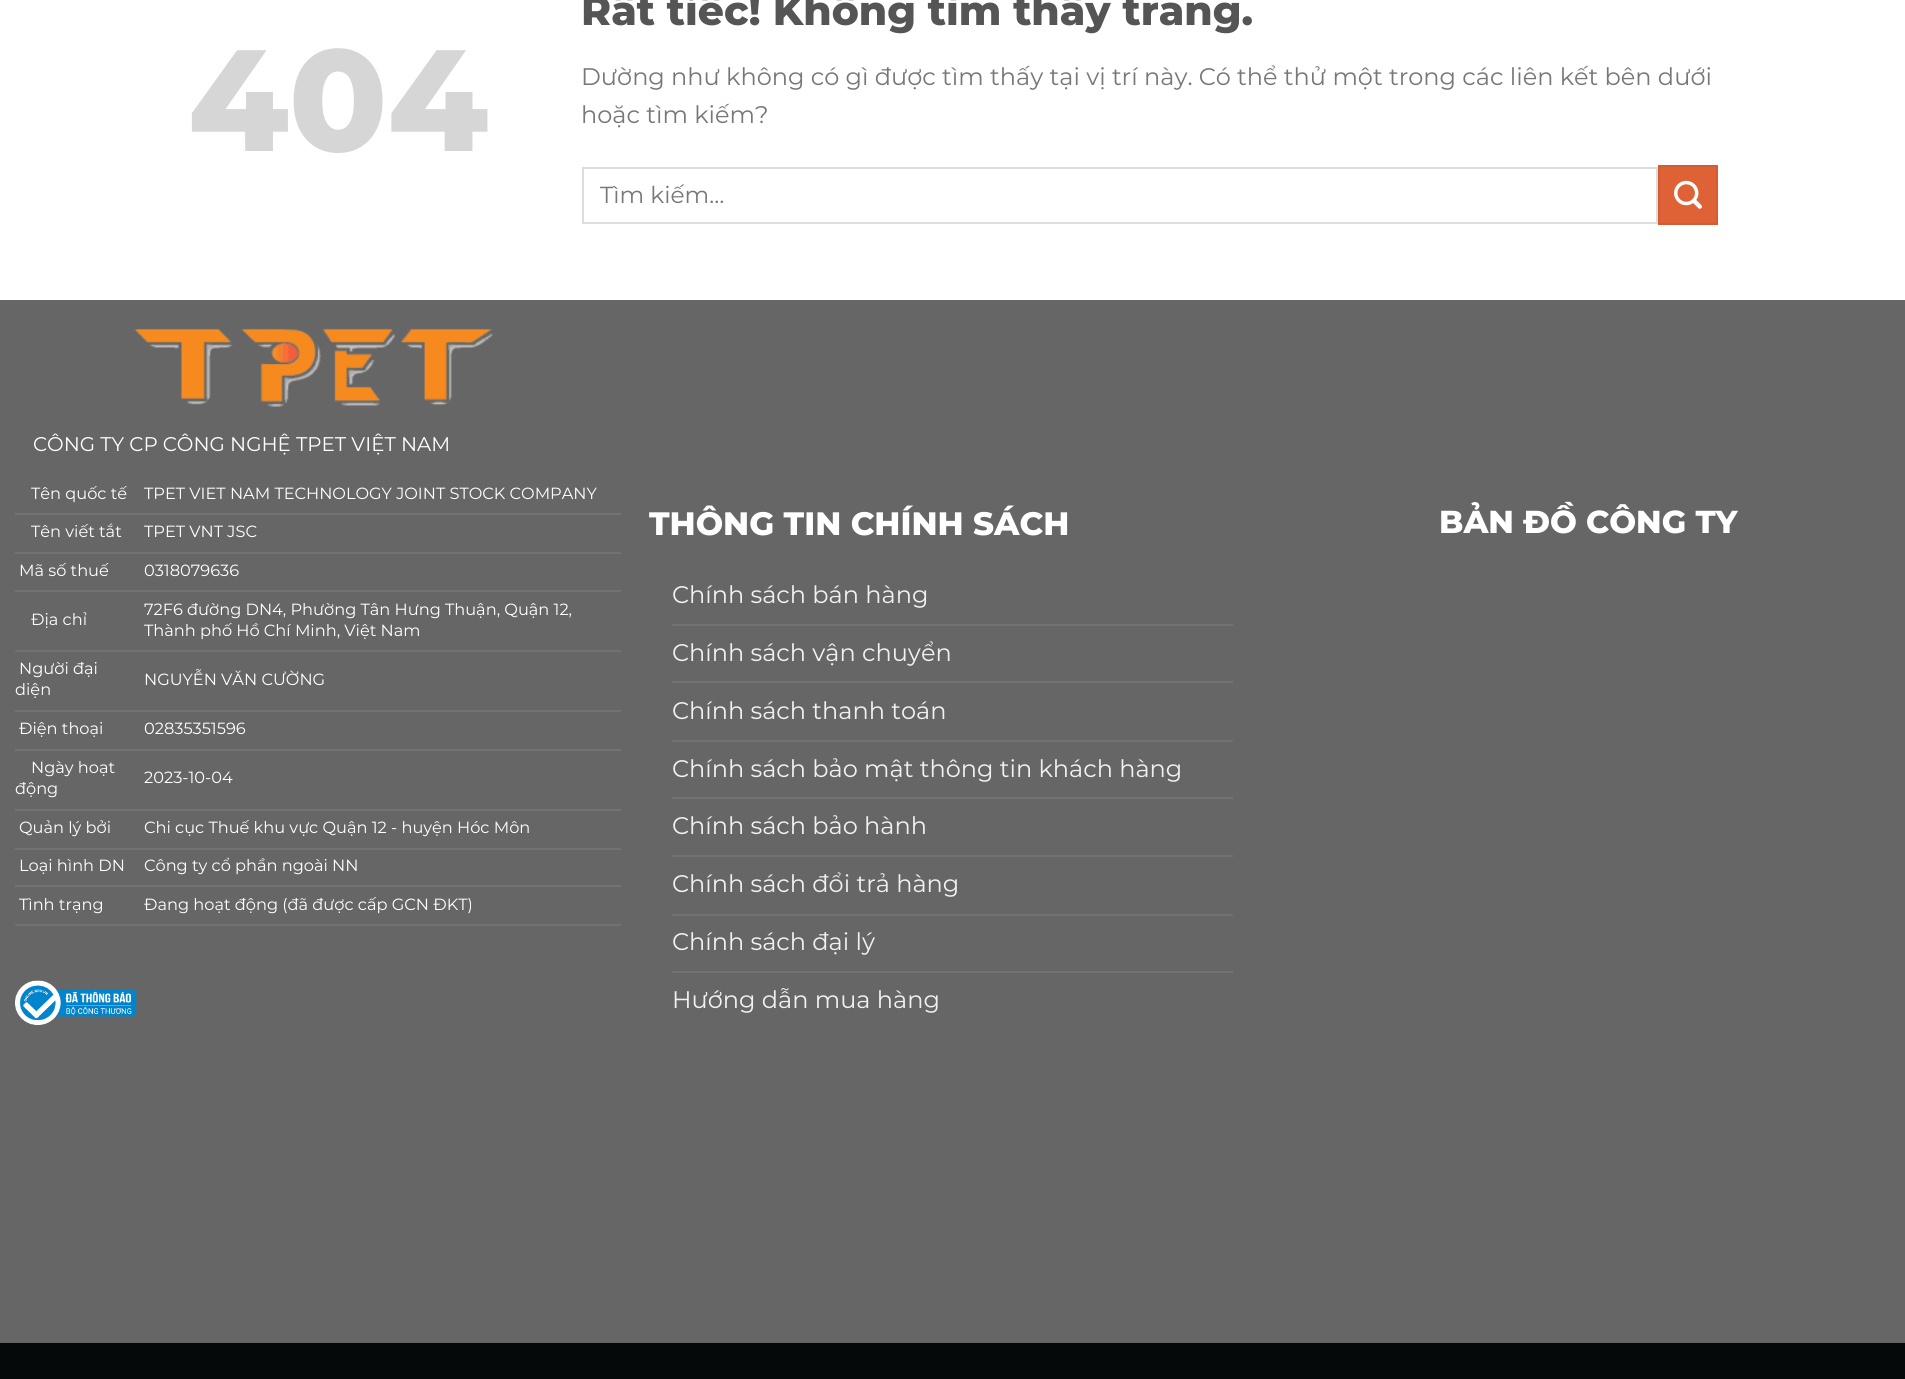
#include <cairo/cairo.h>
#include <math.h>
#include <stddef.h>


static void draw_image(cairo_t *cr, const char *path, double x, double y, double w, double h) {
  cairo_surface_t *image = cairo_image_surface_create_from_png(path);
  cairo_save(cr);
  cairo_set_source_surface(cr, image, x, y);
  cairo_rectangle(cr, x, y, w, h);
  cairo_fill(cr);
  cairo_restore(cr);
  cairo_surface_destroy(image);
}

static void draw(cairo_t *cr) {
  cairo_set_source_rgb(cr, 1, 1, 1);
  cairo_paint(cr);
  cairo_rectangle(cr, 583, 168, 1074, 55);
  cairo_set_source_rgb(cr, 221 / 255.0, 221 / 255.0, 221 / 255.0);
  cairo_stroke(cr);
  cairo_set_source_rgb(cr, 222 / 255.0, 98 / 255.0, 53 / 255.0);
  cairo_rectangle(cr, 1659, 166, 58, 58);
  cairo_fill_preserve(cr);
  cairo_set_source_rgb(cr, 211 / 255.0, 93 / 255.0, 50 / 255.0);
  cairo_stroke(cr);
  draw_image(cr, "images/1.png", 1674, 180, 28, 29);
  cairo_set_source_rgb(cr, 102 / 255.0, 102 / 255.0, 102 / 255.0);
  cairo_rectangle(cr, 0, 300, 1905, 1043);
  cairo_fill(cr);
  draw_image(cr, "images/2.png", 134, 328, 359, 79);
  cairo_set_source_rgb(cr, 114 / 255.0, 114 / 255.0, 114 / 255.0);
  cairo_rectangle(cr, 15, 513, 606, 2);
  cairo_fill(cr);
  cairo_rectangle(cr, 15, 552, 606, 2);
  cairo_fill(cr);
  cairo_rectangle(cr, 15, 590, 606, 2);
  cairo_fill(cr);
  cairo_rectangle(cr, 15, 650, 606, 2);
  cairo_fill(cr);
  cairo_rectangle(cr, 15, 710, 606, 2);
  cairo_fill(cr);
  cairo_rectangle(cr, 15, 749, 606, 2);
  cairo_fill(cr);
  cairo_rectangle(cr, 15, 809, 606, 2);
  cairo_fill(cr);
  cairo_rectangle(cr, 15, 848, 606, 2);
  cairo_fill(cr);
  cairo_rectangle(cr, 15, 885, 606, 2);
  cairo_fill(cr);
  cairo_rectangle(cr, 15, 924, 606, 2);
  cairo_fill(cr);
  draw_image(cr, "images/3.png", 15, 980, 122, 45);
  cairo_rectangle(cr, 672, 624, 561, 2);
  cairo_fill(cr);
  cairo_rectangle(cr, 672, 681, 561, 2);
  cairo_fill(cr);
  cairo_rectangle(cr, 672, 740, 561, 2);
  cairo_fill(cr);
  cairo_rectangle(cr, 672, 797, 561, 2);
  cairo_fill(cr);
  cairo_rectangle(cr, 672, 855, 561, 2);
  cairo_fill(cr);
  cairo_rectangle(cr, 672, 914, 561, 2);
  cairo_fill(cr);
  cairo_rectangle(cr, 672, 971, 561, 2);
  cairo_fill(cr);
  cairo_set_source_rgb(cr, 5 / 255.0, 9 / 255.0, 10 / 255.0);
  cairo_rectangle(cr, 0, 1343, 1905, 36);
  cairo_fill(cr);
  cairo_select_font_face(cr, "Montserrat ExtraBold", CAIRO_FONT_SLANT_NORMAL, CAIRO_FONT_WEIGHT_NORMAL);
  cairo_set_font_size(cr, 144);
  cairo_set_source_rgb(cr, 214 / 255.0, 214 / 255.0, 214 / 255.0);
  cairo_move_to(cr, 188, 151);
  cairo_show_text(cr, "404");
  cairo_set_font_size(cr, 40.75);
  cairo_set_source_rgb(cr, 85 / 255.0, 85 / 255.0, 85 / 255.0);
  cairo_move_to(cr, 581, 25);
  cairo_show_text(cr, "Rất tiếc! Không tìm thấy trang.");
  cairo_select_font_face(cr, "Montserrat", CAIRO_FONT_SLANT_NORMAL, CAIRO_FONT_WEIGHT_NORMAL);
  cairo_set_font_size(cr, 24);
  cairo_set_source_rgb(cr, 119 / 255.0, 119 / 255.0, 119 / 255.0);
  cairo_move_to(cr, 581, 85);
  cairo_show_text(cr, "Dường như không có gì được tìm thấy tại vị trí này. Có thể thử một trong các liên kết bên dưới");
  cairo_move_to(cr, 581, 123);
  cairo_show_text(cr, "hoặc tìm kiếm?");
  cairo_set_font_size(cr, 23.25);
  cairo_move_to(cr, 600, 203);
  cairo_show_text(cr, "Tìm kiếm…");
  cairo_set_font_size(cr, 19.8);
  cairo_set_source_rgb(cr, 1, 1, 1);
  cairo_move_to(cr, 33, 451);
  cairo_show_text(cr, "CÔNG TY CP CÔNG NGHỆ TPET VIỆT NAM");
  cairo_set_font_size(cr, 16.2);
  cairo_move_to(cr, 31, 499);
  cairo_show_text(cr, "Tên quốc tế");
  cairo_move_to(cr, 144, 499);
  cairo_show_text(cr, "TPET VIET NAM TECHNOLOGY JOINT STOCK COMPANY");
  cairo_move_to(cr, 31, 537);
  cairo_show_text(cr, "Tên viết tắt");
  cairo_move_to(cr, 144, 537);
  cairo_show_text(cr, "TPET VNT JSC");
  cairo_move_to(cr, 19, 576);
  cairo_show_text(cr, "Mã số thuế");
  cairo_move_to(cr, 144, 576);
  cairo_show_text(cr, "0318079636");
  cairo_move_to(cr, 31, 625);
  cairo_show_text(cr, "Địa chỉ");
  cairo_move_to(cr, 144, 615);
  cairo_show_text(cr, "72F6 đường DN4, Phường Tân Hưng Thuận, Quận 12,");
  cairo_move_to(cr, 144, 636);
  cairo_show_text(cr, "Thành phố Hồ Chí Minh, Việt Nam");
  cairo_move_to(cr, 19, 674);
  cairo_show_text(cr, "Người đại");
  cairo_move_to(cr, 15, 695);
  cairo_show_text(cr, "diện");
  cairo_move_to(cr, 144, 685);
  cairo_show_text(cr, "NGUYỄN VĂN CƯỜNG");
  cairo_move_to(cr, 19, 734);
  cairo_show_text(cr, "Điện thoại");
  cairo_move_to(cr, 144, 734);
  cairo_show_text(cr, "02835351596");
  cairo_move_to(cr, 31, 773);
  cairo_show_text(cr, "Ngày hoạt");
  cairo_move_to(cr, 15, 794);
  cairo_show_text(cr, "động");
  cairo_move_to(cr, 144, 783);
  cairo_show_text(cr, "2023-10-04");
  cairo_move_to(cr, 19, 833);
  cairo_show_text(cr, "Quản lý bởi");
  cairo_move_to(cr, 144, 833);
  cairo_show_text(cr, "Chi cục Thuế khu vực Quận 12 - huyện Hóc Môn");
  cairo_move_to(cr, 19, 871);
  cairo_show_text(cr, "Loại hình DN");
  cairo_move_to(cr, 144, 871);
  cairo_show_text(cr, "Công ty cổ phần ngoài NN");
  cairo_move_to(cr, 19, 910);
  cairo_show_text(cr, "Tình trạng");
  cairo_move_to(cr, 144, 910);
  cairo_show_text(cr, "Đang hoạt động (đã được cấp GCN ĐKT)");
  cairo_select_font_face(cr, "Montserrat ExtraBold", CAIRO_FONT_SLANT_NORMAL, CAIRO_FONT_WEIGHT_NORMAL);
  cairo_set_font_size(cr, 32.4);
  cairo_move_to(cr, 649, 535);
  cairo_show_text(cr, "THÔNG TIN CHÍNH SÁCH");
  cairo_select_font_face(cr, "Montserrat", CAIRO_FONT_SLANT_NORMAL, CAIRO_FONT_WEIGHT_NORMAL);
  cairo_set_font_size(cr, 24);
  cairo_set_source_rgb(cr, 241 / 255.0, 241 / 255.0, 241 / 255.0);
  cairo_move_to(cr, 672, 603);
  cairo_show_text(cr, "Chính sách bán hàng");
  cairo_move_to(cr, 672, 661);
  cairo_show_text(cr, "Chính sách vận chuyển");
  cairo_move_to(cr, 672, 719);
  cairo_show_text(cr, "Chính sách thanh toán");
  cairo_move_to(cr, 672, 777);
  cairo_show_text(cr, "Chính sách bảo mật thông tin khách hàng");
  cairo_move_to(cr, 672, 834);
  cairo_show_text(cr, "Chính sách bảo hành");
  cairo_move_to(cr, 672, 892);
  cairo_show_text(cr, "Chính sách đổi trả hàng");
  cairo_move_to(cr, 672, 950);
  cairo_show_text(cr, "Chính sách đại lý");
  cairo_move_to(cr, 672, 1008);
  cairo_show_text(cr, "Hướng dẫn mua hàng");
  cairo_select_font_face(cr, "Montserrat ExtraBold", CAIRO_FONT_SLANT_NORMAL, CAIRO_FONT_WEIGHT_NORMAL);
  cairo_set_font_size(cr, 31.75);
  cairo_set_source_rgb(cr, 1, 1, 1);
  cairo_move_to(cr, 1439, 533);
  cairo_show_text(cr, "BẢN ĐỒ CÔNG TY");
}

int main(void) {
  cairo_surface_t *surface = cairo_image_surface_create(CAIRO_FORMAT_RGB24, 1905, 1379);
  cairo_t *cr = cairo_create(surface);
  cairo_font_options_t *options = cairo_font_options_create();
  cairo_font_options_set_hint_metrics(options, CAIRO_HINT_METRICS_OFF);
  cairo_font_options_set_hint_style(options, CAIRO_HINT_STYLE_NONE);
  cairo_set_font_options(cr, options);
  cairo_set_miter_limit(cr, 4);
  draw(cr);
  cairo_surface_write_to_png(surface, "out.png");
  cairo_font_options_destroy(options);
  cairo_destroy(cr);
  cairo_surface_destroy(surface);
  return 0;
}
